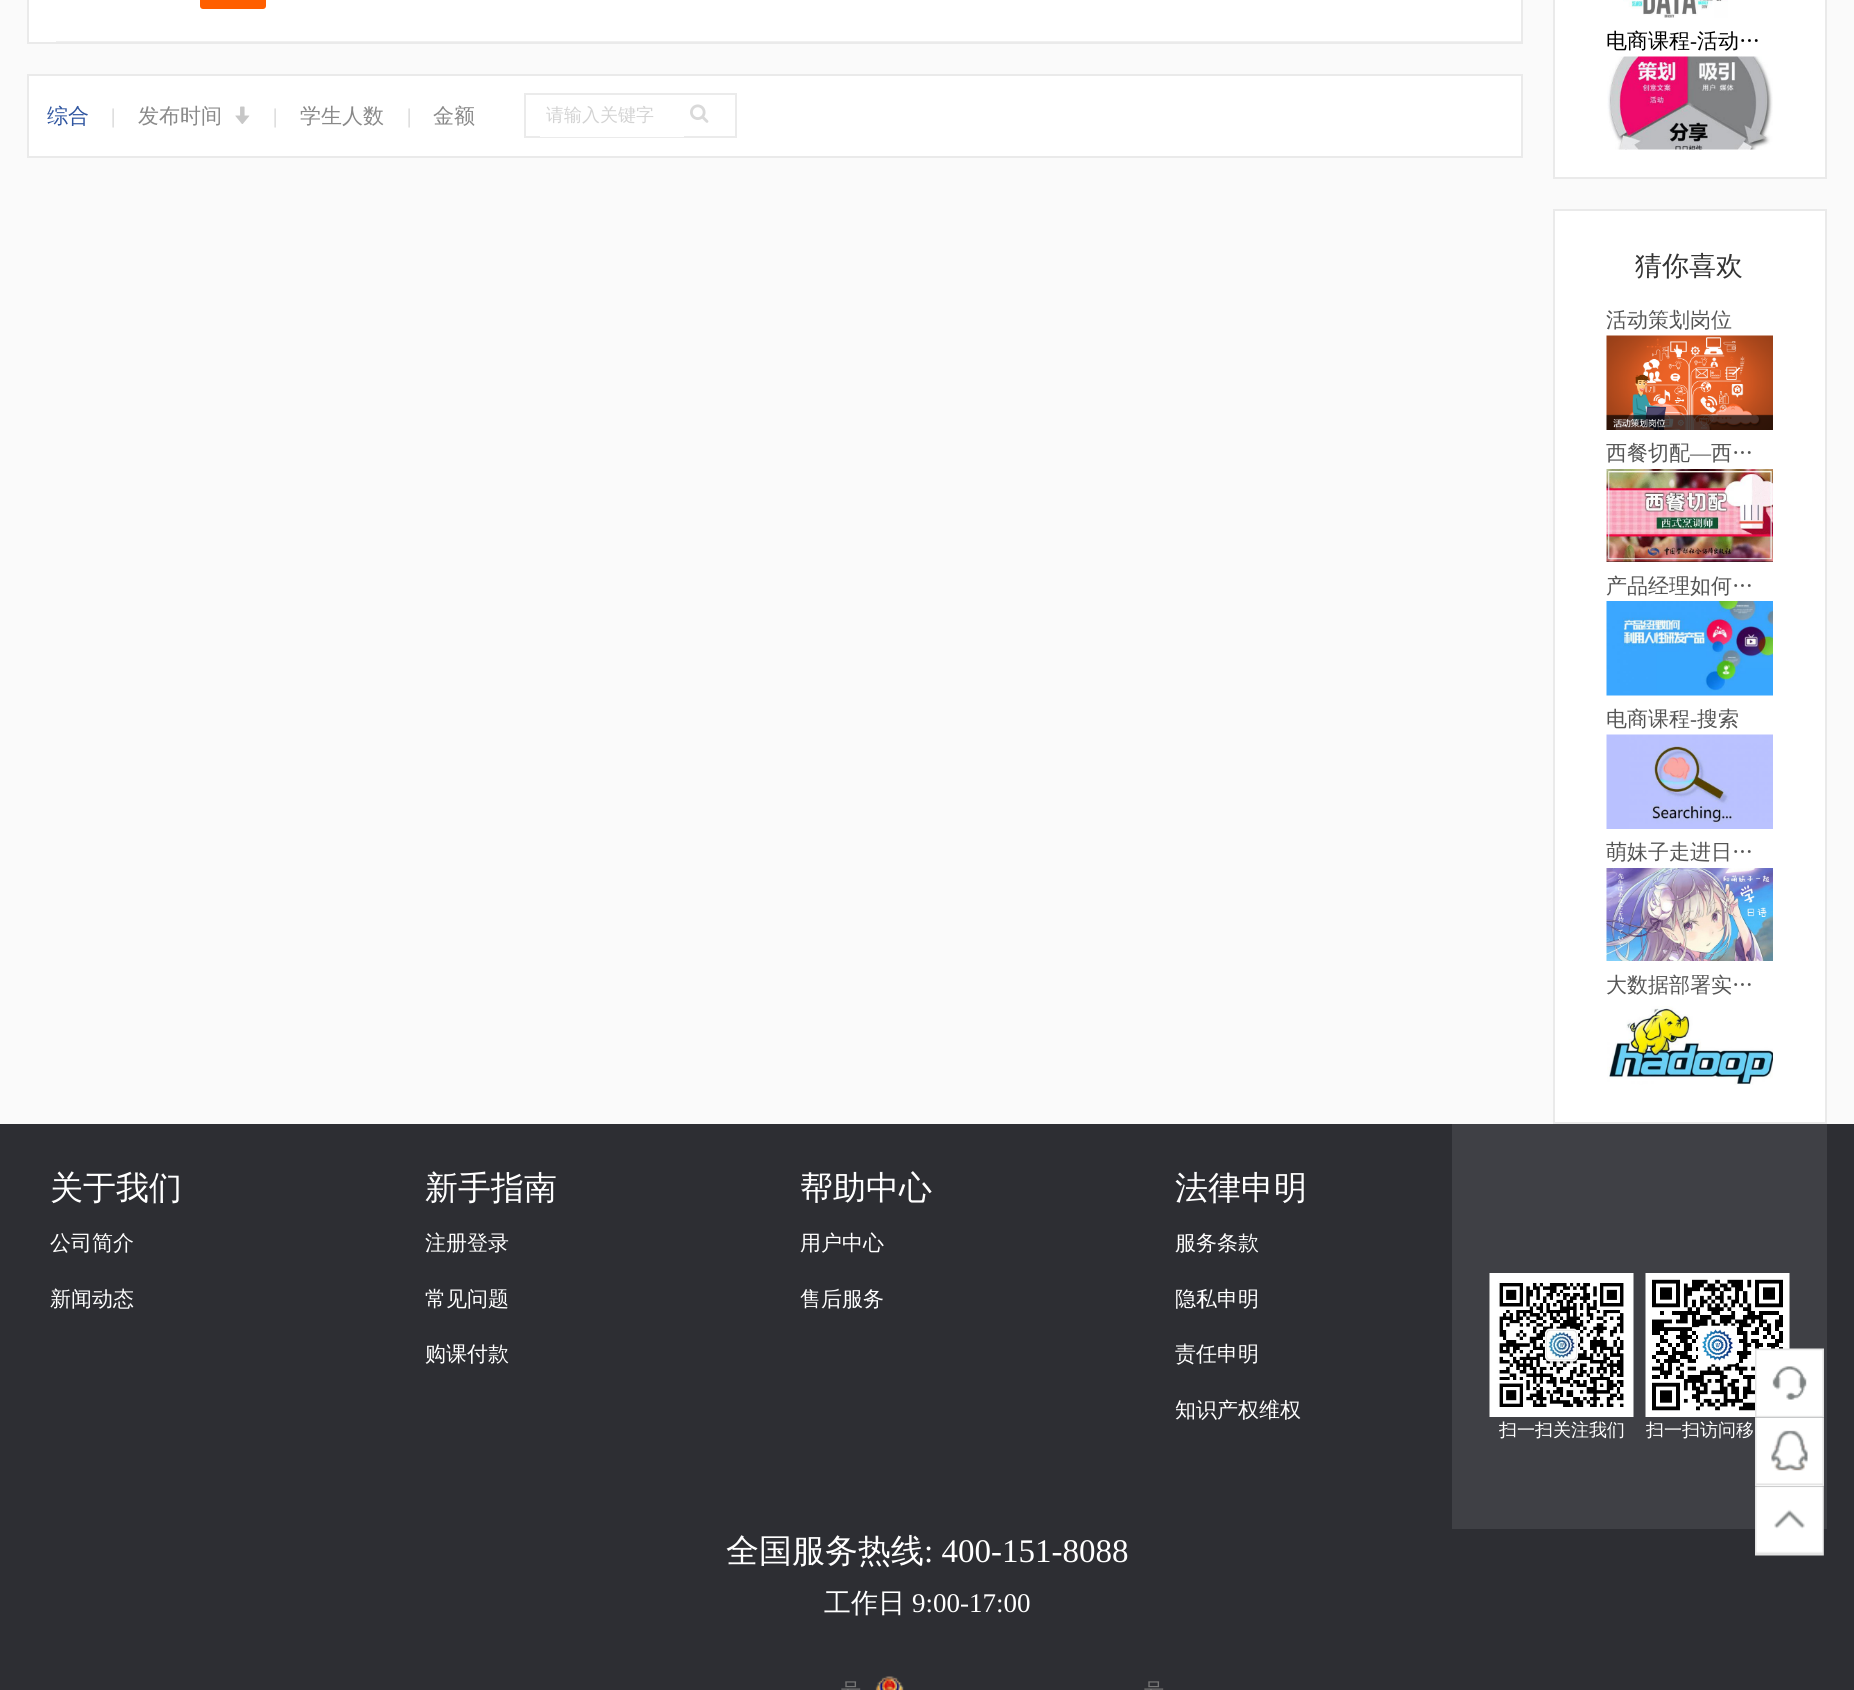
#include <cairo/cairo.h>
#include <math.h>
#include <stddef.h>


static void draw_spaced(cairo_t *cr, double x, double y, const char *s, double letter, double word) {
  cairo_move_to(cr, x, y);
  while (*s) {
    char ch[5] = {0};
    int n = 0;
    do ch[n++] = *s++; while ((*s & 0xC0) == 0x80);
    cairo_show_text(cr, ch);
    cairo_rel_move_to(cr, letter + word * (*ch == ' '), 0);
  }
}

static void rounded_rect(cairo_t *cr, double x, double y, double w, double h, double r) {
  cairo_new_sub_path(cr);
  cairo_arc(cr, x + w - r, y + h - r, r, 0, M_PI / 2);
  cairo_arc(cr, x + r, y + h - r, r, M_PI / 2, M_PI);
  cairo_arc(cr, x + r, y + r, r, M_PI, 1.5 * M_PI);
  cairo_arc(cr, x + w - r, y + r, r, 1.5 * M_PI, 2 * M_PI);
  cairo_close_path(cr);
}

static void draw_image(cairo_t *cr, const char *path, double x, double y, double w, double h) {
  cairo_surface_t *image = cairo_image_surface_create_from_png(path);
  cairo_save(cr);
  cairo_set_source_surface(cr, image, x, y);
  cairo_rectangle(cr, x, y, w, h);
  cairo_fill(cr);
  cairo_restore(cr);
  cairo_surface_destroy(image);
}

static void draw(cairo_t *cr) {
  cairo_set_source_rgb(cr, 250 / 255.0, 250 / 255.0, 250 / 255.0);
  cairo_paint(cr);
  cairo_set_source_rgb(cr, 1, 1, 1);
  cairo_rectangle(cr, 28, -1, 1494, 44);
  cairo_fill_preserve(cr);
  cairo_set_source_rgb(cr, 234 / 255.0, 234 / 255.0, 234 / 255.0);
  cairo_stroke(cr);
  cairo_set_source_rgb(cr, 240 / 255.0, 240 / 255.0, 240 / 255.0);
  cairo_rectangle(cr, 56, 41, 1465, 1);
  cairo_fill(cr);
  cairo_set_source_rgb(cr, 1, 95 / 255.0, 0);
  rounded_rect(cr, 200, -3, 66, 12, 3);
  cairo_fill(cr);
  cairo_set_source_rgb(cr, 1, 1, 1);
  cairo_rectangle(cr, 28, 75, 1494, 82);
  cairo_fill_preserve(cr);
  cairo_set_source_rgb(cr, 234 / 255.0, 234 / 255.0, 234 / 255.0);
  cairo_stroke(cr);
  draw_image(cr, "images/1.png", 235, 106, 15, 18);
  cairo_rectangle(cr, 525, 94, 211, 43);
  cairo_set_source_rgb(cr, 235 / 255.0, 235 / 255.0, 235 / 255.0);
  cairo_stroke(cr);
  cairo_set_source_rgb(cr, 1, 1, 1);
  cairo_rectangle(cr, 540, 136, 144, 1);
  cairo_fill(cr);
  draw_image(cr, "images/2.png", 690, 104, 19, 19);
  cairo_rectangle(cr, 1554, -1, 272, 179);
  cairo_fill_preserve(cr);
  cairo_set_source_rgb(cr, 234 / 255.0, 234 / 255.0, 234 / 255.0);
  cairo_stroke(cr);
  draw_image(cr, "images/3.png", 1623, 0, 105, 18);
  draw_image(cr, "images/4.png", 1607, 56, 166, 94);
  cairo_set_source_rgb(cr, 1, 1, 1);
  cairo_rectangle(cr, 1554, 210, 272, 913);
  cairo_fill_preserve(cr);
  cairo_set_source_rgb(cr, 234 / 255.0, 234 / 255.0, 234 / 255.0);
  cairo_stroke(cr);
  draw_image(cr, "images/5.png", 1606, 335, 167, 95);
  draw_image(cr, "images/6.png", 1606, 469, 167, 93);
  draw_image(cr, "images/7.png", 1606, 601, 167, 95);
  draw_image(cr, "images/8.png", 1606, 734, 167, 95);
  draw_image(cr, "images/9.png", 1606, 868, 167, 93);
  draw_image(cr, "images/10.png", 1607, 1006, 166, 79);
  cairo_set_source_rgb(cr, 45 / 255.0, 46 / 255.0, 51 / 255.0);
  cairo_rectangle(cr, 0, 1124, 1854, 566);
  cairo_fill(cr);
  cairo_set_source_rgb(cr, 63 / 255.0, 64 / 255.0, 69 / 255.0);
  cairo_rectangle(cr, 1452, 1124, 375, 405);
  cairo_fill(cr);
  draw_image(cr, "images/11.png", 1489, 1273, 145, 144);
  draw_image(cr, "images/12.png", 1645, 1273, 145, 144);
  draw_image(cr, "images/13.png", 875, 1676, 29, 14);
  draw_image(cr, "images/14.png", 1755, 1348, 69, 70);
  draw_image(cr, "images/15.png", 1755, 1417, 69, 70);
  draw_image(cr, "images/16.png", 1755, 1486, 69, 70);
  cairo_select_font_face(cr, "WenQuanYi Zen Hei Medium", CAIRO_FONT_SLANT_NORMAL, CAIRO_FONT_WEIGHT_NORMAL);
  cairo_set_font_size(cr, 21);
  cairo_set_source_rgb(cr, 47 / 255.0, 85 / 255.0, 160 / 255.0);
  cairo_move_to(cr, 47, 123);
  cairo_show_text(cr, "综合");
  cairo_select_font_face(cr, "Liberation Serif", CAIRO_FONT_SLANT_NORMAL, CAIRO_FONT_WEIGHT_NORMAL);
  cairo_set_source_rgb(cr, 204 / 255.0, 204 / 255.0, 204 / 255.0);
  cairo_move_to(cr, 111, 123);
  cairo_show_text(cr, "|");
  cairo_select_font_face(cr, "WenQuanYi Zen Hei Medium", CAIRO_FONT_SLANT_NORMAL, CAIRO_FONT_WEIGHT_NORMAL);
  cairo_set_source_rgb(cr, 137 / 255.0, 137 / 255.0, 137 / 255.0);
  cairo_move_to(cr, 138, 123);
  cairo_show_text(cr, "发布时间");
  cairo_select_font_face(cr, "Liberation Serif", CAIRO_FONT_SLANT_NORMAL, CAIRO_FONT_WEIGHT_NORMAL);
  cairo_set_source_rgb(cr, 204 / 255.0, 204 / 255.0, 204 / 255.0);
  cairo_move_to(cr, 273, 123);
  cairo_show_text(cr, "|");
  cairo_select_font_face(cr, "WenQuanYi Zen Hei Medium", CAIRO_FONT_SLANT_NORMAL, CAIRO_FONT_WEIGHT_NORMAL);
  cairo_set_source_rgb(cr, 137 / 255.0, 137 / 255.0, 137 / 255.0);
  cairo_move_to(cr, 300, 123);
  cairo_show_text(cr, "学生人数");
  cairo_select_font_face(cr, "Liberation Serif", CAIRO_FONT_SLANT_NORMAL, CAIRO_FONT_WEIGHT_NORMAL);
  cairo_set_source_rgb(cr, 204 / 255.0, 204 / 255.0, 204 / 255.0);
  cairo_move_to(cr, 407, 123);
  cairo_show_text(cr, "|");
  cairo_select_font_face(cr, "WenQuanYi Zen Hei Medium", CAIRO_FONT_SLANT_NORMAL, CAIRO_FONT_WEIGHT_NORMAL);
  cairo_set_source_rgb(cr, 137 / 255.0, 137 / 255.0, 137 / 255.0);
  cairo_move_to(cr, 433, 123);
  cairo_show_text(cr, "金额");
  cairo_set_font_size(cr, 18);
  cairo_set_source_rgb(cr, 211 / 255.0, 211 / 255.0, 211 / 255.0);
  cairo_move_to(cr, 546, 121);
  cairo_show_text(cr, "请输入关键字");
  cairo_set_font_size(cr, 21);
  cairo_set_source_rgb(cr, 0, 0, 0);
  cairo_move_to(cr, 1606, 48);
  cairo_show_text(cr, "电商课程");
  cairo_select_font_face(cr, "Liberation Serif", CAIRO_FONT_SLANT_NORMAL, CAIRO_FONT_WEIGHT_NORMAL);
  cairo_move_to(cr, 1690, 48);
  cairo_show_text(cr, "-");
  cairo_select_font_face(cr, "WenQuanYi Zen Hei Medium", CAIRO_FONT_SLANT_NORMAL, CAIRO_FONT_WEIGHT_NORMAL);
  cairo_move_to(cr, 1697, 48);
  cairo_show_text(cr, "活动…");
  cairo_set_font_size(cr, 27);
  cairo_set_source_rgb(cr, 51 / 255.0, 51 / 255.0, 51 / 255.0);
  cairo_move_to(cr, 1635, 275);
  cairo_show_text(cr, "猜你喜欢");
  cairo_set_font_size(cr, 21);
  cairo_set_source_rgb(cr, 85 / 255.0, 85 / 255.0, 85 / 255.0);
  cairo_move_to(cr, 1606, 327);
  cairo_show_text(cr, "活动策划岗位");
  cairo_move_to(cr, 1606, 460);
  cairo_show_text(cr, "西餐切配");
  cairo_select_font_face(cr, "Liberation Serif", CAIRO_FONT_SLANT_NORMAL, CAIRO_FONT_WEIGHT_NORMAL);
  cairo_move_to(cr, 1690, 460);
  cairo_show_text(cr, "—");
  cairo_select_font_face(cr, "WenQuanYi Zen Hei Medium", CAIRO_FONT_SLANT_NORMAL, CAIRO_FONT_WEIGHT_NORMAL);
  cairo_move_to(cr, 1711, 460);
  cairo_show_text(cr, "西…");
  cairo_move_to(cr, 1606, 593);
  cairo_show_text(cr, "产品经理如何…");
  cairo_move_to(cr, 1606, 726);
  cairo_show_text(cr, "电商课程");
  cairo_select_font_face(cr, "Liberation Serif", CAIRO_FONT_SLANT_NORMAL, CAIRO_FONT_WEIGHT_NORMAL);
  cairo_move_to(cr, 1690, 726);
  cairo_show_text(cr, "-");
  cairo_select_font_face(cr, "WenQuanYi Zen Hei Medium", CAIRO_FONT_SLANT_NORMAL, CAIRO_FONT_WEIGHT_NORMAL);
  cairo_move_to(cr, 1697, 726);
  cairo_show_text(cr, "搜索");
  draw_spaced(cr, 1606, 859, "萌妹子走进日…", 0, -1);
  cairo_move_to(cr, 1606, 992);
  cairo_show_text(cr, "大数据部署实…");
  cairo_set_font_size(cr, 33);
  cairo_set_source_rgb(cr, 1, 1, 1);
  cairo_move_to(cr, 50, 1199);
  cairo_show_text(cr, "关于我们");
  cairo_set_font_size(cr, 21);
  cairo_move_to(cr, 50, 1250);
  cairo_show_text(cr, "公司简介");
  cairo_move_to(cr, 50, 1306);
  cairo_show_text(cr, "新闻动态");
  cairo_set_font_size(cr, 33);
  cairo_move_to(cr, 425, 1199);
  cairo_show_text(cr, "新手指南");
  cairo_set_font_size(cr, 21);
  cairo_move_to(cr, 425, 1250);
  cairo_show_text(cr, "注册登录");
  cairo_move_to(cr, 425, 1306);
  cairo_show_text(cr, "常见问题");
  cairo_move_to(cr, 425, 1361);
  cairo_show_text(cr, "购课付款");
  cairo_set_font_size(cr, 33);
  cairo_move_to(cr, 800, 1199);
  cairo_show_text(cr, "帮助中心");
  cairo_set_font_size(cr, 21);
  cairo_move_to(cr, 800, 1250);
  cairo_show_text(cr, "用户中心");
  cairo_move_to(cr, 800, 1306);
  cairo_show_text(cr, "售后服务");
  cairo_set_font_size(cr, 33);
  cairo_move_to(cr, 1175, 1199);
  cairo_show_text(cr, "法律申明");
  cairo_set_font_size(cr, 21);
  cairo_move_to(cr, 1175, 1250);
  cairo_show_text(cr, "服务条款");
  cairo_move_to(cr, 1175, 1306);
  cairo_show_text(cr, "隐私申明");
  cairo_move_to(cr, 1175, 1361);
  cairo_show_text(cr, "责任申明");
  cairo_move_to(cr, 1175, 1417);
  cairo_show_text(cr, "知识产权维权");
  cairo_set_font_size(cr, 18);
  cairo_move_to(cr, 1499, 1436);
  cairo_show_text(cr, "扫一扫关注我们");
  cairo_move_to(cr, 1646, 1436);
  cairo_show_text(cr, "扫一扫访问移");
  cairo_set_font_size(cr, 33);
  cairo_move_to(cr, 726, 1562);
  cairo_show_text(cr, "全国服务热线");
  cairo_select_font_face(cr, "Liberation Serif", CAIRO_FONT_SLANT_NORMAL, CAIRO_FONT_WEIGHT_NORMAL);
  cairo_move_to(cr, 924, 1562);
  cairo_show_text(cr, ": 400-151-8088");
  cairo_select_font_face(cr, "WenQuanYi Zen Hei Medium", CAIRO_FONT_SLANT_NORMAL, CAIRO_FONT_WEIGHT_NORMAL);
  cairo_set_font_size(cr, 27);
  cairo_move_to(cr, 824, 1612);
  cairo_show_text(cr, "工作日");
  cairo_select_font_face(cr, "Liberation Serif", CAIRO_FONT_SLANT_NORMAL, CAIRO_FONT_WEIGHT_NORMAL);
  cairo_move_to(cr, 912, 1612);
  cairo_show_text(cr, "9:00-17:00");
  cairo_select_font_face(cr, "WenQuanYi Zen Hei Medium", CAIRO_FONT_SLANT_NORMAL, CAIRO_FONT_WEIGHT_NORMAL);
  cairo_set_font_size(cr, 20);
  cairo_set_source_rgb(cr, 119 / 255.0, 119 / 255.0, 119 / 255.0);
  cairo_move_to(cr, 841, 1697);
  cairo_show_text(cr, "号");
  cairo_move_to(cr, 1144, 1697);
  cairo_show_text(cr, "号");
}

int main(void) {
  cairo_surface_t *surface = cairo_image_surface_create(CAIRO_FORMAT_RGB24, 1854, 1690);
  cairo_t *cr = cairo_create(surface);
  cairo_font_options_t *options = cairo_font_options_create();
  cairo_font_options_set_hint_metrics(options, CAIRO_HINT_METRICS_OFF);
  cairo_font_options_set_hint_style(options, CAIRO_HINT_STYLE_NONE);
  cairo_set_font_options(cr, options);
  cairo_set_miter_limit(cr, 4);
  draw(cr);
  cairo_surface_write_to_png(surface, "out.png");
  cairo_font_options_destroy(options);
  cairo_destroy(cr);
  cairo_surface_destroy(surface);
  return 0;
}
